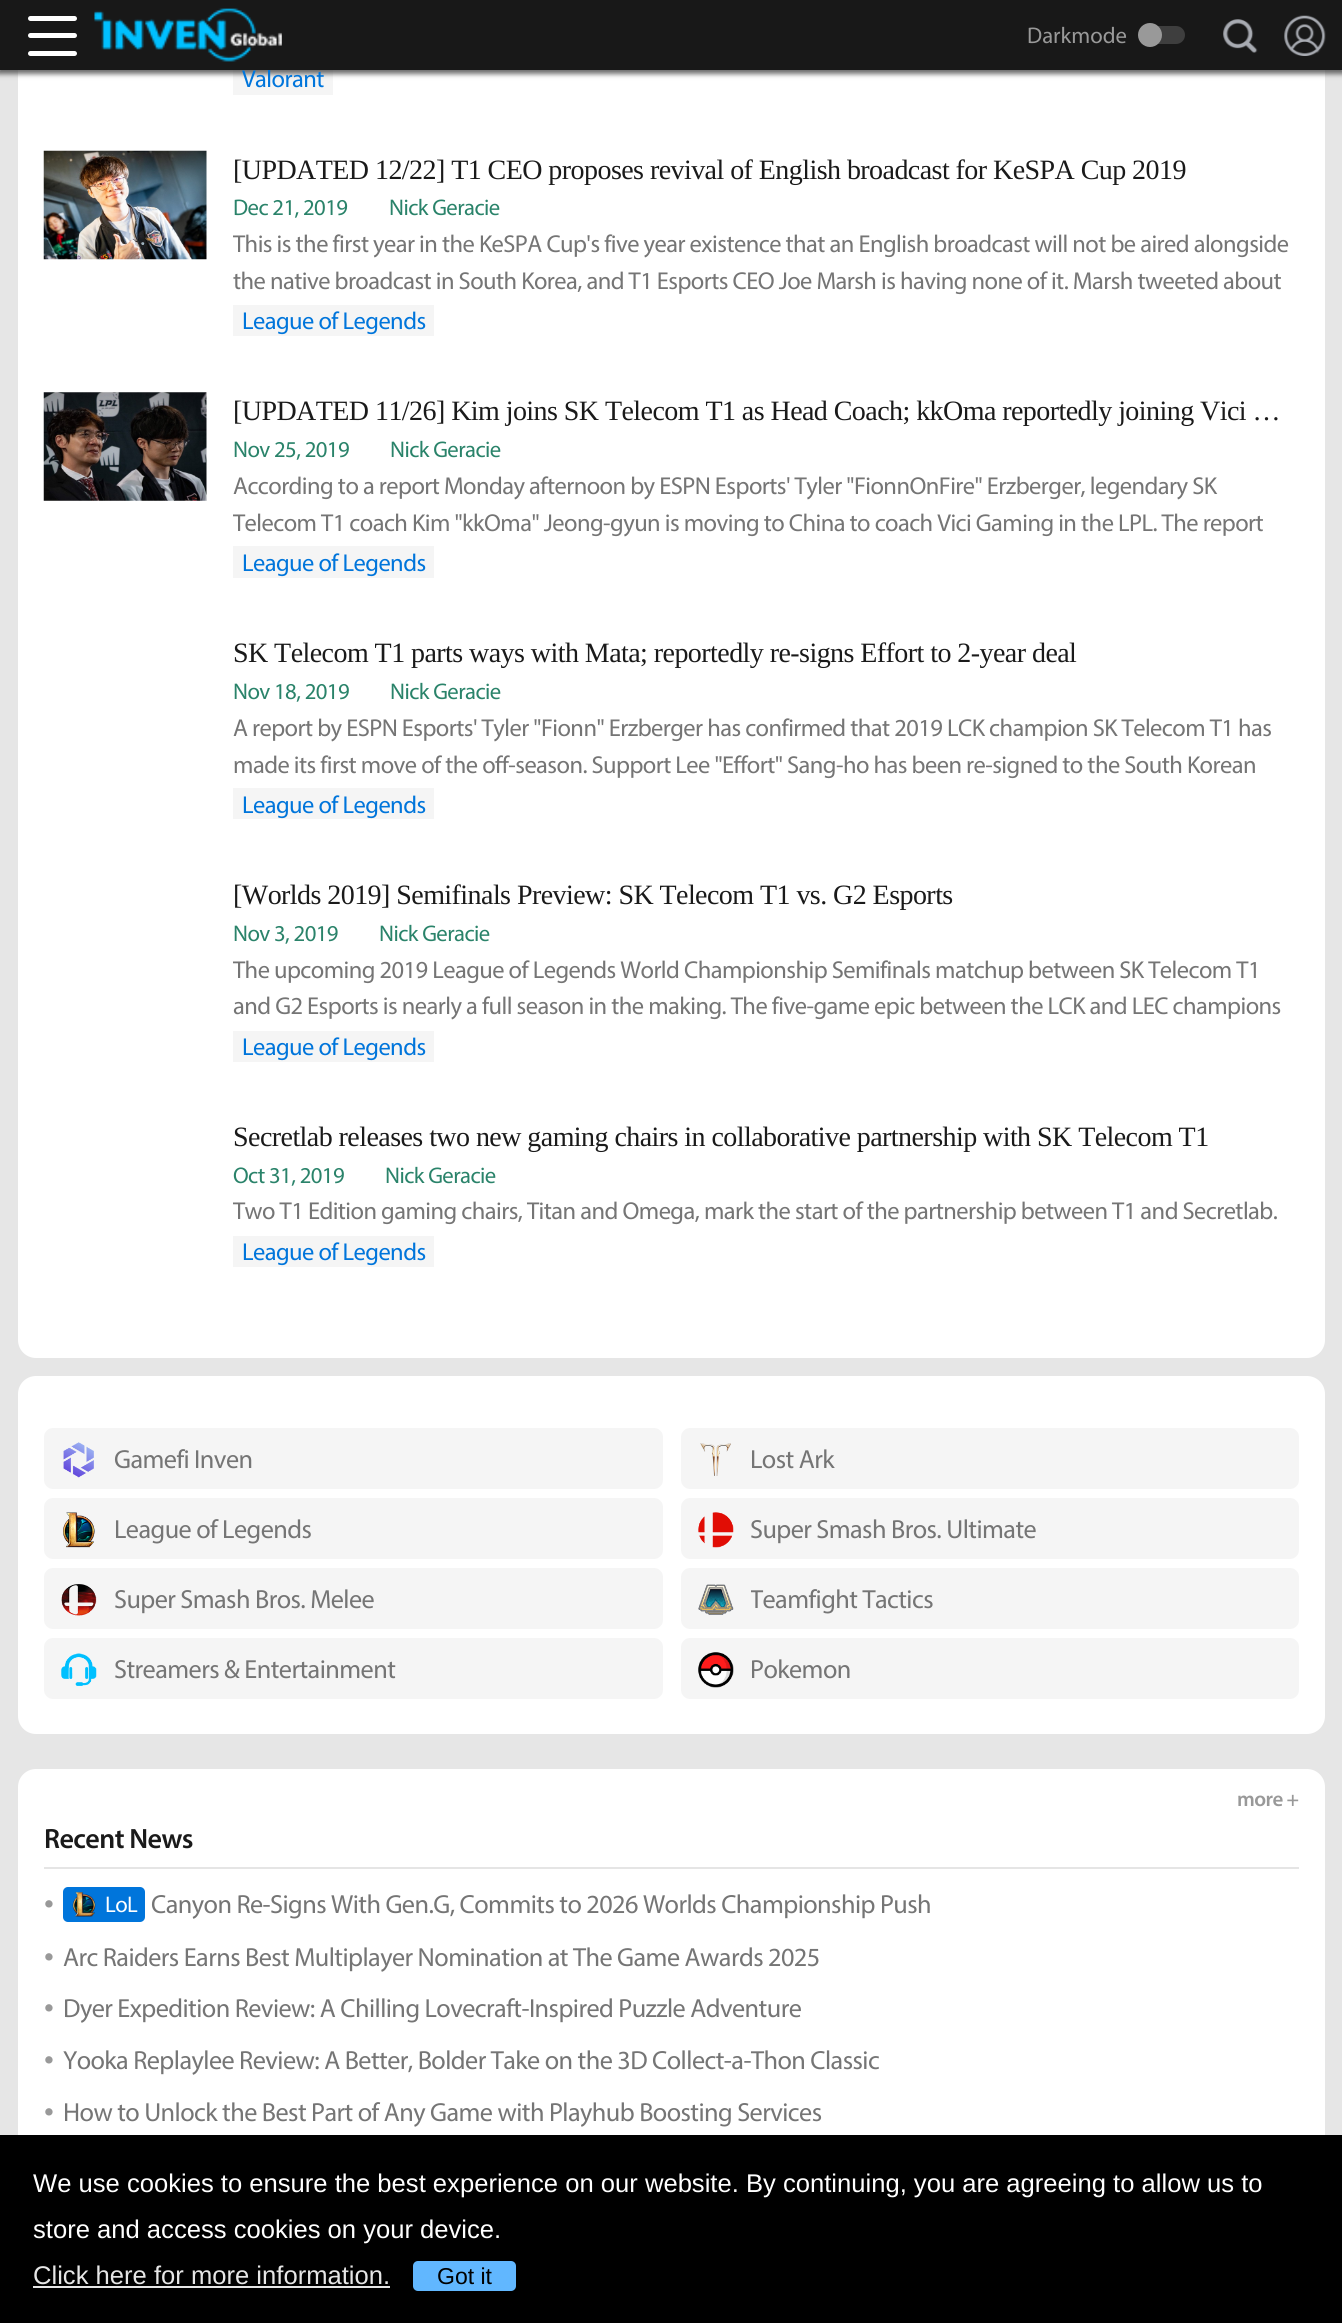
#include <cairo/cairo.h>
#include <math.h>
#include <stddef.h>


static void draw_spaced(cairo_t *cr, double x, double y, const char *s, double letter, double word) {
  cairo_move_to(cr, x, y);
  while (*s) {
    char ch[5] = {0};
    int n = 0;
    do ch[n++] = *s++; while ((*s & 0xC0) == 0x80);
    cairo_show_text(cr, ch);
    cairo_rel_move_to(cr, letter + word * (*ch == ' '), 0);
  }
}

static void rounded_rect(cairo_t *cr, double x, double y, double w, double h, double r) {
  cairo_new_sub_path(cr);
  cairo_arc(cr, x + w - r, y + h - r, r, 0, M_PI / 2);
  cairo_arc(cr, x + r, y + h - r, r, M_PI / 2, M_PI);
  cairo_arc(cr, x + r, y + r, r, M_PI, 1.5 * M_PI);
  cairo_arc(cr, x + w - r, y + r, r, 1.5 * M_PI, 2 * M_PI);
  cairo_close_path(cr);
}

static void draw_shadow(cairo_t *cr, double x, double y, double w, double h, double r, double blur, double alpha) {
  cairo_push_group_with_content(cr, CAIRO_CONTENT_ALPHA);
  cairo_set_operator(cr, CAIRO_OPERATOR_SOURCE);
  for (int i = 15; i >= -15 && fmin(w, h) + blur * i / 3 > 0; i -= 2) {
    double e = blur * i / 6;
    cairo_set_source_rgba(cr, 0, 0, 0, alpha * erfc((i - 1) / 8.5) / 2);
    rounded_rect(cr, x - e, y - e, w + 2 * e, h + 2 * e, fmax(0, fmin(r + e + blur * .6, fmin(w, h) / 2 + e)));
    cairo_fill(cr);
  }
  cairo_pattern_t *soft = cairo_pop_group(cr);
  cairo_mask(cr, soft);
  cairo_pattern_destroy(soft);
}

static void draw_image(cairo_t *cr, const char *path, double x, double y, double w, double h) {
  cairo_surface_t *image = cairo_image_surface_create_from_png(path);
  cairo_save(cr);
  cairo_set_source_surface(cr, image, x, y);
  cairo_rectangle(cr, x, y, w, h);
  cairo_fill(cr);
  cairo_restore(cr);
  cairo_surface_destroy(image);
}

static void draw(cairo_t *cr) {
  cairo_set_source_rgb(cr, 230 / 255.0, 230 / 255.0, 230 / 255.0);
  cairo_paint(cr);
  cairo_set_source_rgb(cr, 1, 1, 1);
  rounded_rect(cr, 18, -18, 1307, 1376, 18);
  cairo_fill(cr);
  cairo_set_source_rgb(cr, 245 / 255.0, 245 / 255.0, 245 / 255.0);
  cairo_rectangle(cr, 233, 70, 100, 25);
  cairo_fill(cr);
  cairo_set_source_rgb(cr, 70 / 255.0, 70 / 255.0, 70 / 255.0);
  draw_shadow(cr, -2, 0, 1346, 74, 0, 2.5, 0.8);
  draw_image(cr, "images/4.png", 43, 150, 164, 110);
  cairo_set_source_rgb(cr, 245 / 255.0, 245 / 255.0, 245 / 255.0);
  cairo_rectangle(cr, 233, 305, 201, 31);
  cairo_fill(cr);
  draw_image(cr, "images/5.png", 43, 392, 164, 109);
  cairo_rectangle(cr, 233, 546, 201, 32);
  cairo_fill(cr);
  cairo_rectangle(cr, 233, 788, 201, 31);
  cairo_fill(cr);
  cairo_rectangle(cr, 233, 1031, 201, 31);
  cairo_fill(cr);
  cairo_rectangle(cr, 233, 1236, 201, 31);
  cairo_fill(cr);
  cairo_set_source_rgb(cr, 1, 1, 1);
  rounded_rect(cr, 18, 1376, 1307, 358, 18);
  cairo_fill(cr);
  cairo_set_source_rgb(cr, 245 / 255.0, 245 / 255.0, 245 / 255.0);
  rounded_rect(cr, 44, 1428, 619, 61, 9);
  cairo_fill(cr);
  draw_image(cr, "images/6.png", 63, 1442, 31, 36);
  rounded_rect(cr, 681, 1428, 618, 61, 9);
  cairo_fill(cr);
  draw_image(cr, "images/7.png", 700, 1443, 31, 33);
  rounded_rect(cr, 44, 1498, 619, 61, 9);
  cairo_fill(cr);
  draw_image(cr, "images/8.png", 63, 1512, 32, 36);
  rounded_rect(cr, 681, 1498, 618, 61, 9);
  cairo_fill(cr);
  draw_image(cr, "images/9.png", 698, 1512, 36, 36);
  rounded_rect(cr, 44, 1568, 619, 61, 9);
  cairo_fill(cr);
  draw_image(cr, "images/10.png", 61, 1584, 36, 32);
  rounded_rect(cr, 681, 1568, 618, 61, 9);
  cairo_fill(cr);
  draw_image(cr, "images/11.png", 698, 1584, 36, 31);
  rounded_rect(cr, 44, 1638, 619, 61, 9);
  cairo_fill(cr);
  draw_image(cr, "images/12.png", 61, 1653, 36, 33);
  rounded_rect(cr, 681, 1638, 618, 61, 9);
  cairo_fill(cr);
  draw_image(cr, "images/13.png", 698, 1652, 36, 36);
  cairo_set_source_rgb(cr, 1, 1, 1);
  rounded_rect(cr, 18, 1769, 1307, 499, 18);
  cairo_fill(cr);
  cairo_set_source_rgb(cr, 229 / 255.0, 229 / 255.0, 229 / 255.0);
  cairo_rectangle(cr, 44, 1867, 1255, 2);
  cairo_fill(cr);
  cairo_set_source_rgb(cr, 0, 117 / 255.0, 219 / 255.0);
  rounded_rect(cr, 63, 1887, 82, 35, 5);
  cairo_fill(cr);
  draw_image(cr, "images/14.png", 72, 1892, 24, 25);
  cairo_set_source_rgb(cr, 0, 0, 0);
  cairo_rectangle(cr, 0, 2135, 1342, 188);
  cairo_fill(cr);
  cairo_set_source_rgb(cr, 230 / 255.0, 230 / 255.0, 230 / 255.0);
  cairo_rectangle(cr, 33, 2286, 357, 2);
  cairo_fill(cr);
  cairo_set_source_rgb(cr, 97 / 255.0, 183 / 255.0, 1);
  rounded_rect(cr, 413, 2261, 103, 30, 5);
  cairo_fill(cr);
  cairo_select_font_face(cr, "Myriad", CAIRO_FONT_SLANT_NORMAL, CAIRO_FONT_WEIGHT_NORMAL);
  cairo_set_font_size(cr, 24.5);
  cairo_set_source_rgb(cr, 0, 117 / 255.0, 219 / 255.0);
  draw_spaced(cr, 242, 87, "Valorant", -0.56, 0);
  cairo_set_source_rgb(cr, 24 / 255.0, 24 / 255.0, 24 / 255.0);
  cairo_rectangle(cr, 0, 0, 1342, 70);
  cairo_fill(cr);
  cairo_set_source_rgb(cr, 62 / 255.0, 62 / 255.0, 62 / 255.0);
  rounded_rect(cr, 1150, 26, 35, 18, 9);
  cairo_fill(cr);
  cairo_set_source_rgb(cr, 153 / 255.0, 153 / 255.0, 153 / 255.0);
  cairo_arc(cr, 1150, 35, 12, 0, 2 * M_PI);
  cairo_fill(cr);
  cairo_set_font_size(cr, 22.75);
  cairo_move_to(cr, 1027, 43);
  cairo_show_text(cr, "Darkmode");
  draw_image(cr, "images/2.png", 1284, 15, 42, 41);
  draw_image(cr, "images/3.png", 1223, 19, 35, 34);
  draw_image(cr, "images/1.png", 94, 8, 188, 54);
  cairo_set_source_rgb(cr, 1, 1, 1);
  rounded_rect(cr, 28, 51, 49, 5, 2.5);
  cairo_fill(cr);
  rounded_rect(cr, 28, 33, 49, 5, 2.5);
  cairo_fill(cr);
  rounded_rect(cr, 28, 16, 49, 5, 2.5);
  cairo_fill(cr);
  cairo_select_font_face(cr, "Liberation Serif", CAIRO_FONT_SLANT_NORMAL, CAIRO_FONT_WEIGHT_NORMAL);
  cairo_set_font_size(cr, 28);
  cairo_set_source_rgb(cr, 26 / 255.0, 26 / 255.0, 26 / 255.0);
  draw_spaced(cr, 233, 179, "[UPDATED 12/22] T1 CEO proposes revival of English broadcast for KeSPA Cup 2019", -0.56, 0);
  cairo_select_font_face(cr, "Myriad", CAIRO_FONT_SLANT_NORMAL, CAIRO_FONT_WEIGHT_NORMAL);
  cairo_set_font_size(cr, 22.75);
  cairo_set_source_rgb(cr, 42 / 255.0, 131 / 255.0, 106 / 255.0);
  draw_spaced(cr, 233, 215, "Dec 21, 2019", -0.56, 0);
  draw_spaced(cr, 389, 215, "Nick Geracie", -0.56, 0);
  cairo_save(cr);
  cairo_rectangle(cr, 233, 226, 1066, 73);
  cairo_clip(cr);
  cairo_set_font_size(cr, 24.5);
  cairo_set_source_rgb(cr, 117 / 255.0, 117 / 255.0, 117 / 255.0);
  draw_spaced(cr, 233, 252, "This is the first year in the KeSPA Cup's five year existence that an English broadcast will not be aired alongside", -0.56, 0);
  cairo_restore(cr);
  cairo_set_font_size(cr, 24.5);
  cairo_set_source_rgb(cr, 117 / 255.0, 117 / 255.0, 117 / 255.0);
  draw_spaced(cr, 233, 289, "the native broadcast in South Korea, and T1 Esports CEO Joe Marsh is having none of it. Marsh tweeted about", -0.56, 0);
  cairo_set_source_rgb(cr, 0, 117 / 255.0, 219 / 255.0);
  draw_spaced(cr, 242, 329, "League of Legends", -0.56, 0);
  cairo_select_font_face(cr, "Liberation Serif", CAIRO_FONT_SLANT_NORMAL, CAIRO_FONT_WEIGHT_NORMAL);
  cairo_set_font_size(cr, 28);
  cairo_set_source_rgb(cr, 26 / 255.0, 26 / 255.0, 26 / 255.0);
  draw_spaced(cr, 233, 420, "[UPDATED 11/26] Kim joins SK Telecom T1 as Head Coach; kkOma reportedly joining Vici …", -0.56, 0);
  cairo_select_font_face(cr, "Myriad", CAIRO_FONT_SLANT_NORMAL, CAIRO_FONT_WEIGHT_NORMAL);
  cairo_set_font_size(cr, 22.75);
  cairo_set_source_rgb(cr, 42 / 255.0, 131 / 255.0, 106 / 255.0);
  draw_spaced(cr, 233, 457, "Nov 25, 2019", -0.56, 0);
  draw_spaced(cr, 390, 457, "Nick Geracie", -0.56, 0);
  cairo_set_font_size(cr, 24.5);
  cairo_set_source_rgb(cr, 117 / 255.0, 117 / 255.0, 117 / 255.0);
  draw_spaced(cr, 233, 494, "According to a report Monday afternoon by ESPN Esports' Tyler \"FionnOnFire\" Erzberger, legendary SK", -0.56, 0);
  cairo_save(cr);
  cairo_rectangle(cr, 233, 467, 1066, 74);
  cairo_clip(cr);
  draw_spaced(cr, 233, 531, "Telecom T1 coach Kim \"kkOma\" Jeong-gyun is moving to China to coach Vici Gaming in the LPL. The report", -0.56, 0);
  cairo_restore(cr);
  cairo_set_source_rgb(cr, 0, 117 / 255.0, 219 / 255.0);
  draw_spaced(cr, 242, 571, "League of Legends", -0.56, 0);
  cairo_select_font_face(cr, "Liberation Serif", CAIRO_FONT_SLANT_NORMAL, CAIRO_FONT_WEIGHT_NORMAL);
  cairo_set_font_size(cr, 28);
  cairo_set_source_rgb(cr, 26 / 255.0, 26 / 255.0, 26 / 255.0);
  draw_spaced(cr, 233, 662, "SK Telecom T1 parts ways with Mata; reportedly re-signs Effort to 2-year deal", -0.56, 0);
  cairo_select_font_face(cr, "Myriad", CAIRO_FONT_SLANT_NORMAL, CAIRO_FONT_WEIGHT_NORMAL);
  cairo_set_font_size(cr, 22.75);
  cairo_set_source_rgb(cr, 42 / 255.0, 131 / 255.0, 106 / 255.0);
  draw_spaced(cr, 233, 699, "Nov 18, 2019", -0.56, 0);
  draw_spaced(cr, 390, 699, "Nick Geracie", -0.56, 0);
  cairo_set_font_size(cr, 24.5);
  cairo_set_source_rgb(cr, 117 / 255.0, 117 / 255.0, 117 / 255.0);
  draw_spaced(cr, 233, 736, "A report by ESPN Esports' Tyler \"Fionn\" Erzberger has confirmed that 2019 LCK champion SK Telecom T1 has", -0.56, 0);
  draw_spaced(cr, 233, 773, "made its first move of the off-season. Support Lee \"Effort\" Sang-ho has been re-signed to the South Korean", -0.56, 0);
  cairo_set_source_rgb(cr, 0, 117 / 255.0, 219 / 255.0);
  draw_spaced(cr, 242, 813, "League of Legends", -0.56, 0);
  cairo_select_font_face(cr, "Liberation Serif", CAIRO_FONT_SLANT_NORMAL, CAIRO_FONT_WEIGHT_NORMAL);
  cairo_set_font_size(cr, 28);
  cairo_set_source_rgb(cr, 26 / 255.0, 26 / 255.0, 26 / 255.0);
  draw_spaced(cr, 233, 904, "[Worlds 2019] Semifinals Preview: SK Telecom T1 vs. G2 Esports", -0.56, 0);
  cairo_select_font_face(cr, "Myriad", CAIRO_FONT_SLANT_NORMAL, CAIRO_FONT_WEIGHT_NORMAL);
  cairo_set_font_size(cr, 22.75);
  cairo_set_source_rgb(cr, 42 / 255.0, 131 / 255.0, 106 / 255.0);
  draw_spaced(cr, 233, 941, "Nov 3, 2019", -0.56, 0);
  draw_spaced(cr, 379, 941, "Nick Geracie", -0.56, 0);
  cairo_save(cr);
  cairo_rectangle(cr, 233, 952, 1066, 74);
  cairo_clip(cr);
  cairo_set_font_size(cr, 24.5);
  cairo_set_source_rgb(cr, 117 / 255.0, 117 / 255.0, 117 / 255.0);
  draw_spaced(cr, 233, 978, "The upcoming 2019 League of Legends World Championship Semifinals matchup between SK Telecom T1", -0.56, 0);
  cairo_restore(cr);
  cairo_set_font_size(cr, 24.5);
  cairo_set_source_rgb(cr, 117 / 255.0, 117 / 255.0, 117 / 255.0);
  draw_spaced(cr, 233, 1014, "and G2 Esports is nearly a full season in the making. The five-game epic between the LCK and LEC champions", -0.56, 0);
  cairo_set_source_rgb(cr, 0, 117 / 255.0, 219 / 255.0);
  draw_spaced(cr, 242, 1055, "League of Legends", -0.56, 0);
  cairo_select_font_face(cr, "Liberation Serif", CAIRO_FONT_SLANT_NORMAL, CAIRO_FONT_WEIGHT_NORMAL);
  cairo_set_font_size(cr, 28);
  cairo_set_source_rgb(cr, 26 / 255.0, 26 / 255.0, 26 / 255.0);
  draw_spaced(cr, 233, 1146, "Secretlab releases two new gaming chairs in collaborative partnership with SK Telecom T1", -0.56, 0);
  cairo_select_font_face(cr, "Myriad", CAIRO_FONT_SLANT_NORMAL, CAIRO_FONT_WEIGHT_NORMAL);
  cairo_set_font_size(cr, 22.75);
  cairo_set_source_rgb(cr, 42 / 255.0, 131 / 255.0, 106 / 255.0);
  draw_spaced(cr, 233, 1183, "Oct 31, 2019", -0.56, 0);
  draw_spaced(cr, 385, 1183, "Nick Geracie", -0.56, 0);
  cairo_save(cr);
  cairo_rectangle(cr, 233, 1194, 1066, 36);
  cairo_clip(cr);
  cairo_set_font_size(cr, 24.5);
  cairo_set_source_rgb(cr, 117 / 255.0, 117 / 255.0, 117 / 255.0);
  draw_spaced(cr, 233, 1219, "Two T1 Edition gaming chairs, Titan and Omega, mark the start of the partnership between T1 and Secretlab.", -0.56, 0);
  cairo_restore(cr);
  cairo_set_font_size(cr, 24.5);
  cairo_set_source_rgb(cr, 0, 117 / 255.0, 219 / 255.0);
  draw_spaced(cr, 242, 1260, "League of Legends", -0.56, 0);
  cairo_set_font_size(cr, 26.25);
  cairo_set_source_rgb(cr, 117 / 255.0, 117 / 255.0, 117 / 255.0);
  draw_spaced(cr, 114, 1468, "Gamefi Inven", -0.56, 0);
  draw_spaced(cr, 750, 1468, "Lost Ark", -0.56, 0);
  draw_spaced(cr, 114, 1538, "League of Legends", -0.56, 0);
  draw_spaced(cr, 750, 1538, "Super Smash Bros. Ultimate", -0.56, 0);
  draw_spaced(cr, 114, 1608, "Super Smash Bros. Melee", -0.56, 0);
  cairo_save(cr);
  cairo_rectangle(cr, 751, 1568, 520, 61);
  cairo_clip(cr);
  draw_spaced(cr, 750, 1608, "Teamfight Tactics", -0.56, 0);
  cairo_restore(cr);
  draw_spaced(cr, 114, 1678, "Streamers & Entertainment", -0.56, 0);
  draw_spaced(cr, 750, 1678, "Pokemon", -0.56, 0);
  cairo_select_font_face(cr, "Myriad SemiBold", CAIRO_FONT_SLANT_NORMAL, CAIRO_FONT_WEIGHT_NORMAL);
  cairo_set_font_size(cr, 21);
  cairo_set_source_rgb(cr, 153 / 255.0, 153 / 255.0, 153 / 255.0);
  draw_spaced(cr, 1237, 1806, "more +", -0.56, 0);
  cairo_set_font_size(cr, 28);
  cairo_set_source_rgb(cr, 26 / 255.0, 26 / 255.0, 26 / 255.0);
  draw_spaced(cr, 44, 1848, "Recent News", -0.56, 0);
  cairo_select_font_face(cr, "Myriad", CAIRO_FONT_SLANT_NORMAL, CAIRO_FONT_WEIGHT_NORMAL);
  cairo_set_font_size(cr, 35);
  cairo_set_source_rgb(cr, 153 / 255.0, 153 / 255.0, 153 / 255.0);
  draw_spaced(cr, 44, 1913, "•", -0.56, 0);
  cairo_set_font_size(cr, 22.75);
  cairo_set_source_rgb(cr, 1, 1, 1);
  draw_spaced(cr, 105, 1912, "LoL", -0.56, 0);
  cairo_set_font_size(cr, 26.25);
  cairo_set_source_rgb(cr, 117 / 255.0, 117 / 255.0, 117 / 255.0);
  draw_spaced(cr, 151, 1913, "Canyon Re-Signs With Gen.G, Commits to 2026 Worlds Championship Push", -0.56, 0);
  cairo_set_font_size(cr, 35);
  cairo_set_source_rgb(cr, 153 / 255.0, 153 / 255.0, 153 / 255.0);
  draw_spaced(cr, 44, 1966, "•", -0.56, 0);
  cairo_set_font_size(cr, 26.25);
  cairo_set_source_rgb(cr, 117 / 255.0, 117 / 255.0, 117 / 255.0);
  draw_spaced(cr, 63, 1966, "Arc Raiders Earns Best Multiplayer Nomination at The Game Awards 2025", -0.56, 0);
  cairo_set_font_size(cr, 35);
  cairo_set_source_rgb(cr, 153 / 255.0, 153 / 255.0, 153 / 255.0);
  draw_spaced(cr, 44, 2017, "•", -0.56, 0);
  cairo_set_font_size(cr, 26.25);
  cairo_set_source_rgb(cr, 117 / 255.0, 117 / 255.0, 117 / 255.0);
  draw_spaced(cr, 63, 2017, "Dyer Expedition Review: A Chilling Lovecraft-Inspired Puzzle Adventure", -0.56, 0);
  cairo_set_font_size(cr, 35);
  cairo_set_source_rgb(cr, 153 / 255.0, 153 / 255.0, 153 / 255.0);
  draw_spaced(cr, 44, 2069, "•", -0.56, 0);
  cairo_set_font_size(cr, 26.25);
  cairo_set_source_rgb(cr, 117 / 255.0, 117 / 255.0, 117 / 255.0);
  draw_spaced(cr, 63, 2069, "Yooka Replaylee Review: A Better, Bolder Take on the 3D Collect-a-Thon Classic", -0.56, 0);
  cairo_set_font_size(cr, 35);
  cairo_set_source_rgb(cr, 153 / 255.0, 153 / 255.0, 153 / 255.0);
  draw_spaced(cr, 44, 2121, "•", -0.56, 0);
  cairo_set_font_size(cr, 26.25);
  cairo_set_source_rgb(cr, 117 / 255.0, 117 / 255.0, 117 / 255.0);
  draw_spaced(cr, 63, 2121, "How to Unlock the Best Part of Any Game with Playhub Boosting Services", -0.56, 0);
  cairo_select_font_face(cr, "Liberation Sans", CAIRO_FONT_SLANT_NORMAL, CAIRO_FONT_WEIGHT_NORMAL);
  cairo_set_font_size(cr, 25.6);
  cairo_set_source_rgb(cr, 1, 1, 1);
  cairo_move_to(cr, 33, 2192);
  cairo_show_text(cr, "We use cookies to ensure the best experience on our website. By continuing, you are agreeing to allow us to");
  cairo_move_to(cr, 33, 2238);
  cairo_show_text(cr, "store and access cookies on your device.");
  cairo_set_source_rgb(cr, 230 / 255.0, 230 / 255.0, 230 / 255.0);
  cairo_move_to(cr, 33, 2284);
  cairo_show_text(cr, "Click here for more information.");
  cairo_set_font_size(cr, 23);
  cairo_set_source_rgb(cr, 0, 0, 0);
  cairo_move_to(cr, 437, 2284);
  cairo_show_text(cr, "Got it");
}

int main(void) {
  cairo_surface_t *surface = cairo_image_surface_create(CAIRO_FORMAT_RGB24, 1342, 2323);
  cairo_t *cr = cairo_create(surface);
  cairo_font_options_t *options = cairo_font_options_create();
  cairo_font_options_set_hint_metrics(options, CAIRO_HINT_METRICS_OFF);
  cairo_font_options_set_hint_style(options, CAIRO_HINT_STYLE_NONE);
  cairo_set_font_options(cr, options);
  cairo_set_miter_limit(cr, 4);
  draw(cr);
  cairo_surface_write_to_png(surface, "out.png");
  cairo_font_options_destroy(options);
  cairo_destroy(cr);
  cairo_surface_destroy(surface);
  return 0;
}
